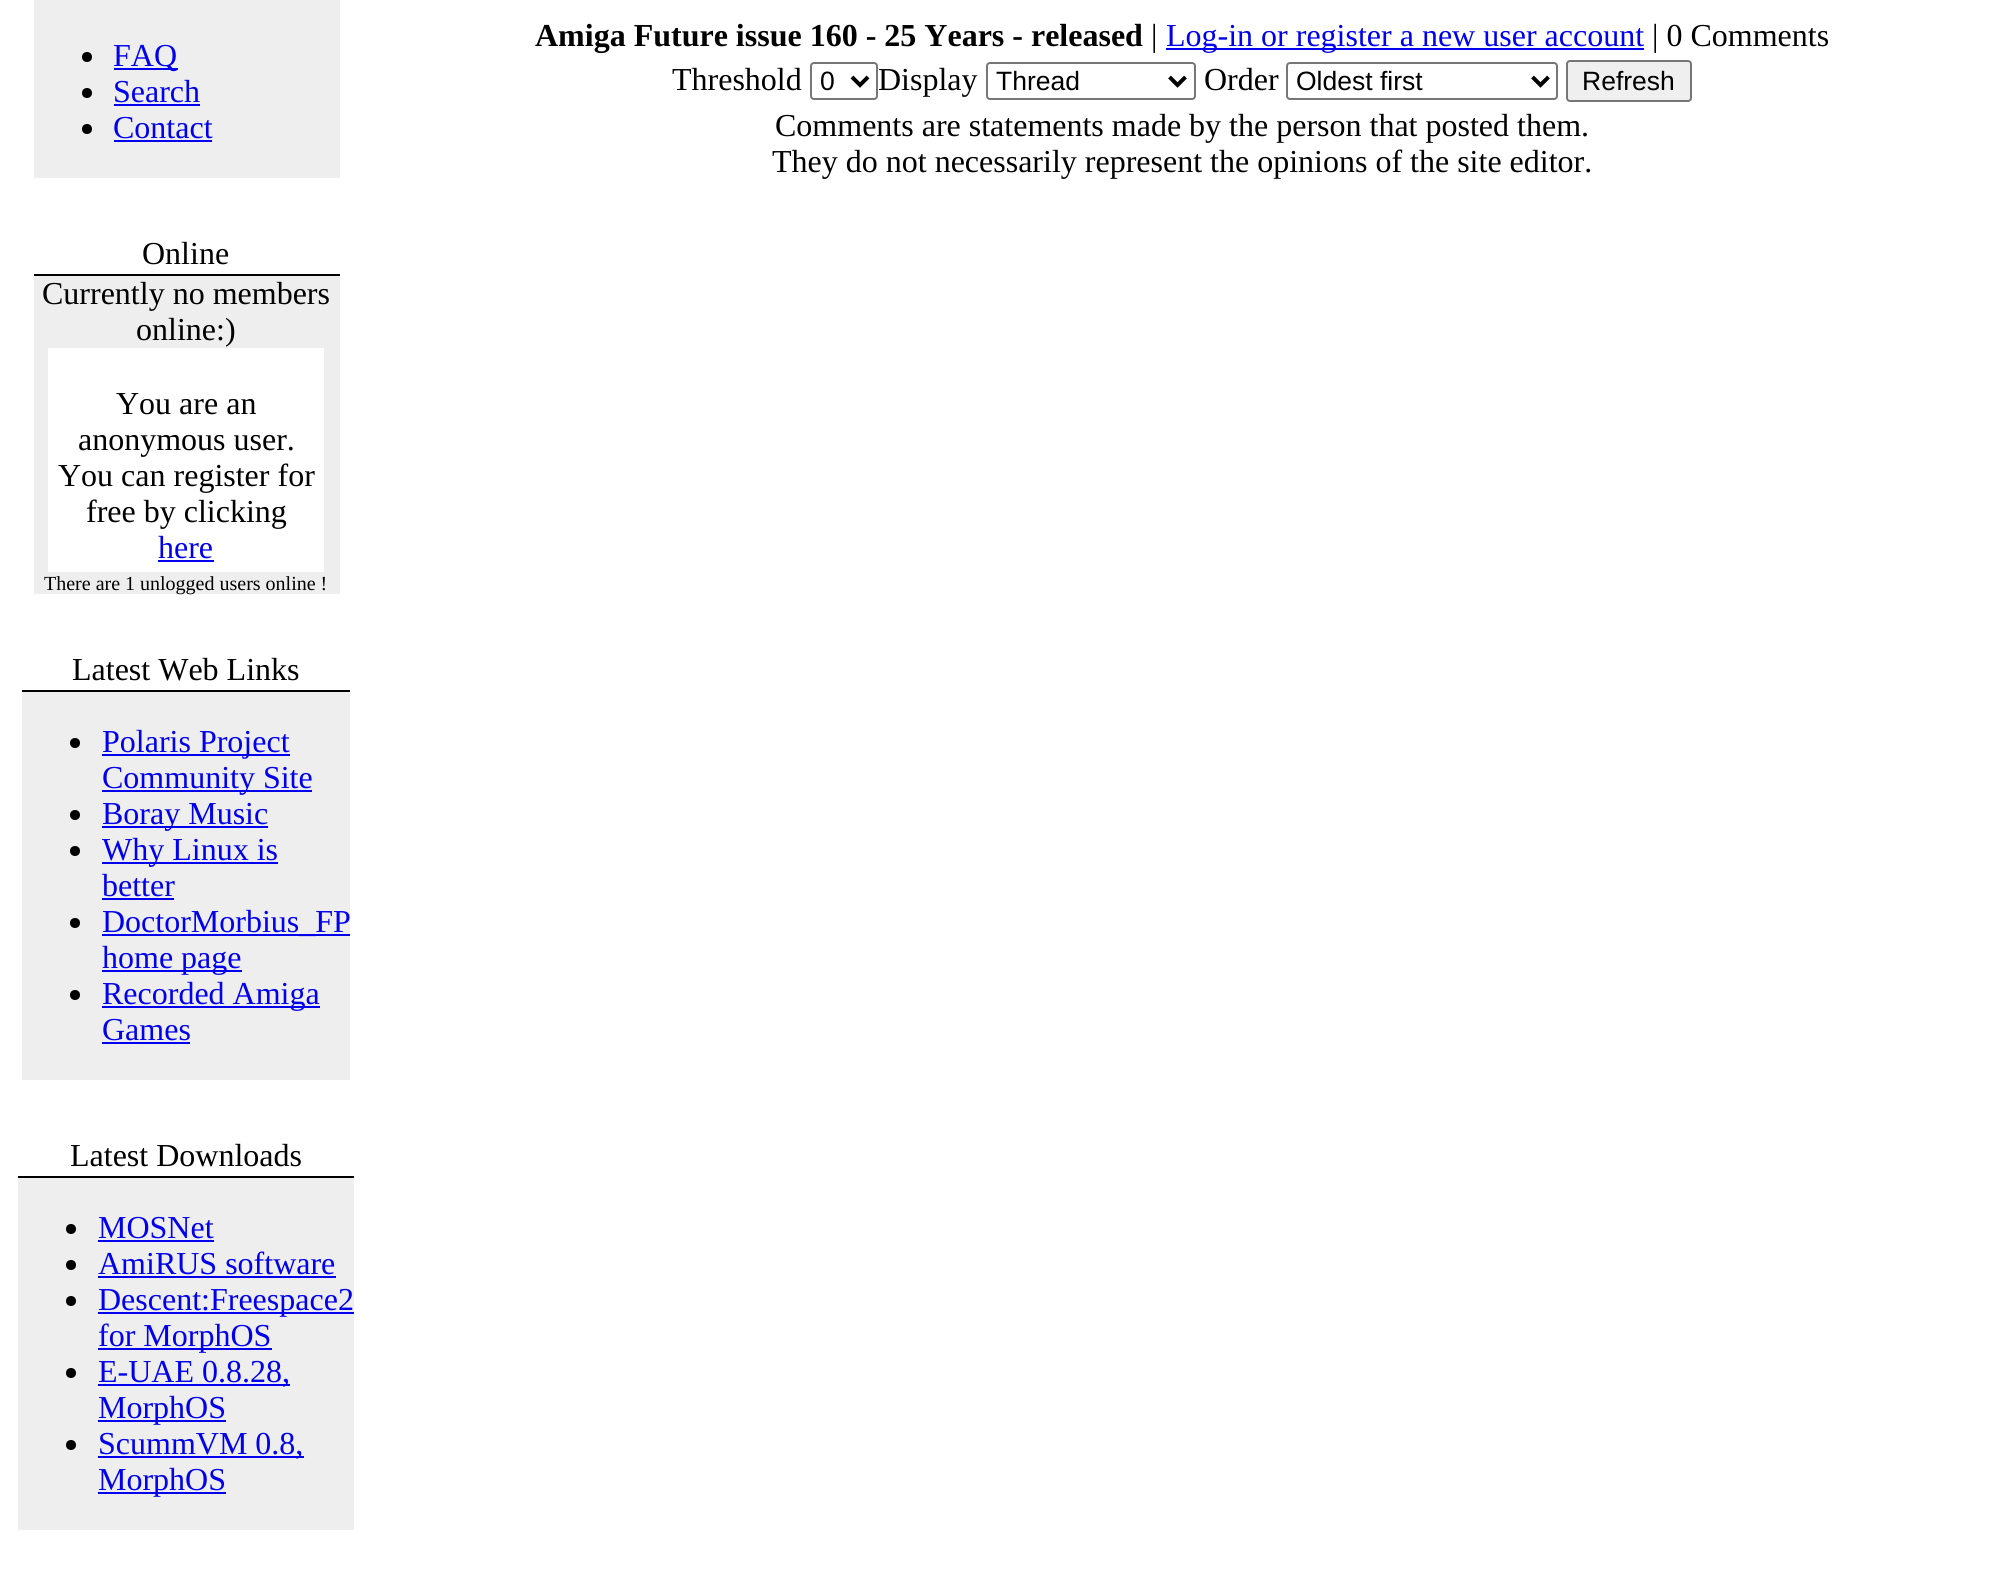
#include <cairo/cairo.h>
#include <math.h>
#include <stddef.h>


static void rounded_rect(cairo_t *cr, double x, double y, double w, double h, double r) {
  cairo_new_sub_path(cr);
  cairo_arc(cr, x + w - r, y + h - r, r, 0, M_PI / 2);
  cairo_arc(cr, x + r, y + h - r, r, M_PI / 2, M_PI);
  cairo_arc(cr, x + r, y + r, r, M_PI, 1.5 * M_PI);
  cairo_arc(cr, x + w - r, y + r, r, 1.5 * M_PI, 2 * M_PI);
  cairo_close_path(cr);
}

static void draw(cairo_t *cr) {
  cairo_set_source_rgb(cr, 1, 1, 1);
  cairo_paint(cr);
  cairo_set_source_rgb(cr, 238 / 255.0, 238 / 255.0, 238 / 255.0);
  cairo_rectangle(cr, 34, 0, 306, 178);
  cairo_fill(cr);
  cairo_set_source_rgb(cr, 0, 0, 0);
  cairo_arc(cr, 87, 57, 5, 0, 2 * M_PI);
  cairo_fill(cr);
  cairo_set_source_rgb(cr, 0, 0, 238 / 255.0);
  cairo_rectangle(cr, 114, 68, 64, 2);
  cairo_fill(cr);
  cairo_set_source_rgb(cr, 0, 0, 0);
  cairo_arc(cr, 87, 93, 5, 0, 2 * M_PI);
  cairo_fill(cr);
  cairo_set_source_rgb(cr, 0, 0, 238 / 255.0);
  cairo_rectangle(cr, 114, 104, 86, 2);
  cairo_fill(cr);
  cairo_set_source_rgb(cr, 0, 0, 0);
  cairo_arc(cr, 87, 129, 5, 0, 2 * M_PI);
  cairo_fill(cr);
  cairo_set_source_rgb(cr, 0, 0, 238 / 255.0);
  cairo_rectangle(cr, 114, 140, 98, 2);
  cairo_fill(cr);
  cairo_set_source_rgb(cr, 0, 0, 0);
  cairo_rectangle(cr, 34, 274, 306, 2);
  cairo_fill(cr);
  cairo_set_source_rgb(cr, 238 / 255.0, 238 / 255.0, 238 / 255.0);
  cairo_rectangle(cr, 34, 276, 306, 318);
  cairo_fill(cr);
  cairo_set_source_rgb(cr, 1, 1, 1);
  cairo_rectangle(cr, 48, 348, 276, 224);
  cairo_fill(cr);
  cairo_set_source_rgb(cr, 0, 0, 238 / 255.0);
  cairo_rectangle(cr, 158, 560, 56, 2);
  cairo_fill(cr);
  cairo_set_source_rgb(cr, 0, 0, 0);
  cairo_rectangle(cr, 22, 690, 328, 2);
  cairo_fill(cr);
  cairo_set_source_rgb(cr, 238 / 255.0, 238 / 255.0, 238 / 255.0);
  cairo_rectangle(cr, 22, 692, 328, 388);
  cairo_fill(cr);
  cairo_set_source_rgb(cr, 0, 0, 0);
  cairo_arc(cr, 75, 743, 5, 0, 2 * M_PI);
  cairo_fill(cr);
  cairo_set_source_rgb(cr, 0, 0, 238 / 255.0);
  cairo_rectangle(cr, 102, 754, 188, 2);
  cairo_fill(cr);
  cairo_rectangle(cr, 102, 790, 210, 2);
  cairo_fill(cr);
  cairo_set_source_rgb(cr, 0, 0, 0);
  cairo_arc(cr, 75, 815, 5, 0, 2 * M_PI);
  cairo_fill(cr);
  cairo_set_source_rgb(cr, 0, 0, 238 / 255.0);
  cairo_rectangle(cr, 102, 826, 166, 2);
  cairo_fill(cr);
  cairo_set_source_rgb(cr, 0, 0, 0);
  cairo_arc(cr, 75, 851, 5, 0, 2 * M_PI);
  cairo_fill(cr);
  cairo_set_source_rgb(cr, 0, 0, 238 / 255.0);
  cairo_rectangle(cr, 102, 862, 176, 2);
  cairo_fill(cr);
  cairo_rectangle(cr, 102, 898, 72, 2);
  cairo_fill(cr);
  cairo_set_source_rgb(cr, 0, 0, 0);
  cairo_arc(cr, 75, 923, 5, 0, 2 * M_PI);
  cairo_fill(cr);
  cairo_set_source_rgb(cr, 0, 0, 238 / 255.0);
  cairo_rectangle(cr, 102, 934, 248, 2);
  cairo_fill(cr);
  cairo_rectangle(cr, 102, 970, 140, 2);
  cairo_fill(cr);
  cairo_set_source_rgb(cr, 0, 0, 0);
  cairo_arc(cr, 75, 995, 5, 0, 2 * M_PI);
  cairo_fill(cr);
  cairo_set_source_rgb(cr, 0, 0, 238 / 255.0);
  cairo_rectangle(cr, 102, 1006, 218, 2);
  cairo_fill(cr);
  cairo_rectangle(cr, 102, 1042, 88, 2);
  cairo_fill(cr);
  cairo_set_source_rgb(cr, 0, 0, 0);
  cairo_rectangle(cr, 18, 1176, 336, 2);
  cairo_fill(cr);
  cairo_set_source_rgb(cr, 238 / 255.0, 238 / 255.0, 238 / 255.0);
  cairo_rectangle(cr, 18, 1178, 336, 352);
  cairo_fill(cr);
  cairo_set_source_rgb(cr, 0, 0, 0);
  cairo_arc(cr, 71, 1229, 5, 0, 2 * M_PI);
  cairo_fill(cr);
  cairo_set_source_rgb(cr, 0, 0, 238 / 255.0);
  cairo_rectangle(cr, 98, 1240, 116, 2);
  cairo_fill(cr);
  cairo_set_source_rgb(cr, 0, 0, 0);
  cairo_arc(cr, 71, 1265, 5, 0, 2 * M_PI);
  cairo_fill(cr);
  cairo_set_source_rgb(cr, 0, 0, 238 / 255.0);
  cairo_rectangle(cr, 98, 1276, 238, 2);
  cairo_fill(cr);
  cairo_set_source_rgb(cr, 0, 0, 0);
  cairo_arc(cr, 71, 1301, 5, 0, 2 * M_PI);
  cairo_fill(cr);
  cairo_set_source_rgb(cr, 0, 0, 238 / 255.0);
  cairo_rectangle(cr, 98, 1312, 256, 2);
  cairo_fill(cr);
  cairo_rectangle(cr, 98, 1348, 174, 2);
  cairo_fill(cr);
  cairo_set_source_rgb(cr, 0, 0, 0);
  cairo_arc(cr, 71, 1373, 5, 0, 2 * M_PI);
  cairo_fill(cr);
  cairo_set_source_rgb(cr, 0, 0, 238 / 255.0);
  cairo_rectangle(cr, 98, 1384, 192, 2);
  cairo_fill(cr);
  cairo_rectangle(cr, 98, 1420, 128, 2);
  cairo_fill(cr);
  cairo_set_source_rgb(cr, 0, 0, 0);
  cairo_arc(cr, 71, 1445, 5, 0, 2 * M_PI);
  cairo_fill(cr);
  cairo_set_source_rgb(cr, 0, 0, 238 / 255.0);
  cairo_rectangle(cr, 98, 1456, 206, 2);
  cairo_fill(cr);
  cairo_rectangle(cr, 98, 1492, 128, 2);
  cairo_fill(cr);
  cairo_rectangle(cr, 1166, 48, 478, 2);
  cairo_fill(cr);
  rounded_rect(cr, 811, 63, 66, 36, 3);
  cairo_set_source_rgb(cr, 118 / 255.0, 118 / 255.0, 118 / 255.0);
  cairo_stroke(cr);
  cairo_new_path(cr);
  cairo_move_to(cr, 852, 77);
  cairo_line_to(cr, 860, 85);
  cairo_line_to(cr, 868, 77);
  cairo_set_source_rgb(cr, 0, 0, 0);
  cairo_set_line_width(cr, 4);
  cairo_stroke(cr);
  rounded_rect(cr, 987, 63, 208, 36, 3);
  cairo_set_source_rgb(cr, 118 / 255.0, 118 / 255.0, 118 / 255.0);
  cairo_set_line_width(cr, 2);
  cairo_stroke(cr);
  cairo_new_path(cr);
  cairo_move_to(cr, 1169.5, 77);
  cairo_line_to(cr, 1177.5, 85);
  cairo_line_to(cr, 1185.5, 77);
  cairo_set_source_rgb(cr, 0, 0, 0);
  cairo_set_line_width(cr, 4);
  cairo_stroke(cr);
  rounded_rect(cr, 1287, 63, 270, 36, 3);
  cairo_set_source_rgb(cr, 118 / 255.0, 118 / 255.0, 118 / 255.0);
  cairo_set_line_width(cr, 2);
  cairo_stroke(cr);
  cairo_new_path(cr);
  cairo_move_to(cr, 1532.5, 77);
  cairo_line_to(cr, 1540.5, 85);
  cairo_line_to(cr, 1548.5, 77);
  cairo_set_source_rgb(cr, 0, 0, 0);
  cairo_set_line_width(cr, 4);
  cairo_stroke(cr);
  cairo_set_source_rgb(cr, 239 / 255.0, 239 / 255.0, 239 / 255.0);
  rounded_rect(cr, 1567, 61, 124, 40, 3);
  cairo_fill_preserve(cr);
  cairo_set_source_rgb(cr, 118 / 255.0, 118 / 255.0, 118 / 255.0);
  cairo_set_line_width(cr, 2);
  cairo_stroke(cr);
  cairo_select_font_face(cr, "Liberation Serif", CAIRO_FONT_SLANT_NORMAL, CAIRO_FONT_WEIGHT_NORMAL);
  cairo_set_font_size(cr, 32);
  cairo_set_source_rgb(cr, 0, 0, 238 / 255.0);
  cairo_move_to(cr, 113, 66);
  cairo_show_text(cr, "FAQ");
  cairo_move_to(cr, 113, 102);
  cairo_show_text(cr, "Search");
  cairo_move_to(cr, 113, 138);
  cairo_show_text(cr, "Contact");
  cairo_set_source_rgb(cr, 0, 0, 0);
  cairo_move_to(cr, 142, 264);
  cairo_show_text(cr, "Online");
  cairo_move_to(cr, 42, 304);
  cairo_show_text(cr, "Currently no members");
  cairo_move_to(cr, 136, 340);
  cairo_show_text(cr, "online:)");
  cairo_move_to(cr, 116, 414);
  cairo_show_text(cr, "You are an");
  cairo_move_to(cr, 78, 450);
  cairo_show_text(cr, "anonymous user.");
  cairo_move_to(cr, 58, 486);
  cairo_show_text(cr, "You can register for");
  cairo_move_to(cr, 86, 522);
  cairo_show_text(cr, "free by clicking");
  cairo_set_source_rgb(cr, 0, 0, 238 / 255.0);
  cairo_move_to(cr, 158, 558);
  cairo_show_text(cr, "here");
  cairo_set_font_size(cr, 20);
  cairo_set_source_rgb(cr, 0, 0, 0);
  cairo_move_to(cr, 44, 590);
  cairo_show_text(cr, "There are 1 unlogged users online !");
  cairo_set_font_size(cr, 32);
  cairo_move_to(cr, 72, 680);
  cairo_show_text(cr, "Latest Web Links");
  cairo_set_source_rgb(cr, 0, 0, 238 / 255.0);
  cairo_move_to(cr, 102, 752);
  cairo_show_text(cr, "Polaris Project");
  cairo_move_to(cr, 102, 788);
  cairo_show_text(cr, "Community Site");
  cairo_move_to(cr, 102, 824);
  cairo_show_text(cr, "Boray Music");
  cairo_move_to(cr, 102, 860);
  cairo_show_text(cr, "Why Linux is");
  cairo_move_to(cr, 102, 896);
  cairo_show_text(cr, "better");
  cairo_move_to(cr, 102, 932);
  cairo_show_text(cr, "DoctorMorbius_FP");
  cairo_move_to(cr, 102, 968);
  cairo_show_text(cr, "home page");
  cairo_move_to(cr, 102, 1004);
  cairo_show_text(cr, "Recorded Amiga");
  cairo_move_to(cr, 102, 1040);
  cairo_show_text(cr, "Games");
  cairo_set_source_rgb(cr, 0, 0, 0);
  cairo_move_to(cr, 70, 1166);
  cairo_show_text(cr, "Latest Downloads");
  cairo_set_source_rgb(cr, 0, 0, 238 / 255.0);
  cairo_move_to(cr, 98, 1238);
  cairo_show_text(cr, "MOSNet");
  cairo_move_to(cr, 98, 1274);
  cairo_show_text(cr, "AmiRUS software");
  cairo_move_to(cr, 98, 1310);
  cairo_show_text(cr, "Descent:Freespace2");
  cairo_move_to(cr, 98, 1346);
  cairo_show_text(cr, "for MorphOS");
  cairo_move_to(cr, 98, 1382);
  cairo_show_text(cr, "E-UAE 0.8.28,");
  cairo_move_to(cr, 98, 1418);
  cairo_show_text(cr, "MorphOS");
  cairo_move_to(cr, 98, 1454);
  cairo_show_text(cr, "ScummVM 0.8,");
  cairo_move_to(cr, 98, 1490);
  cairo_show_text(cr, "MorphOS");
  cairo_select_font_face(cr, "Liberation Serif", CAIRO_FONT_SLANT_NORMAL, CAIRO_FONT_WEIGHT_BOLD);
  cairo_set_source_rgb(cr, 0, 0, 0);
  cairo_move_to(cr, 535, 46);
  cairo_show_text(cr, "Amiga Future issue 160 - 25 Years - released");
  cairo_select_font_face(cr, "Liberation Serif", CAIRO_FONT_SLANT_NORMAL, CAIRO_FONT_WEIGHT_NORMAL);
  cairo_move_to(cr, 1151, 46);
  cairo_show_text(cr, "|");
  cairo_set_source_rgb(cr, 0, 0, 238 / 255.0);
  cairo_move_to(cr, 1166, 46);
  cairo_show_text(cr, "Log-in or register a new user account");
  cairo_set_source_rgb(cr, 0, 0, 0);
  cairo_move_to(cr, 1652, 46);
  cairo_show_text(cr, "| 0 Comments");
  cairo_move_to(cr, 672, 90);
  cairo_show_text(cr, "Threshold");
  cairo_select_font_face(cr, "Liberation Sans", CAIRO_FONT_SLANT_NORMAL, CAIRO_FONT_WEIGHT_NORMAL);
  cairo_set_font_size(cr, 26.5);
  cairo_move_to(cr, 820, 90);
  cairo_show_text(cr, "0");
  cairo_select_font_face(cr, "Liberation Serif", CAIRO_FONT_SLANT_NORMAL, CAIRO_FONT_WEIGHT_NORMAL);
  cairo_set_font_size(cr, 32);
  cairo_move_to(cr, 878, 90);
  cairo_show_text(cr, "Display");
  cairo_select_font_face(cr, "Liberation Sans", CAIRO_FONT_SLANT_NORMAL, CAIRO_FONT_WEIGHT_NORMAL);
  cairo_set_font_size(cr, 26.5);
  cairo_move_to(cr, 996, 90);
  cairo_show_text(cr, "Thread");
  cairo_select_font_face(cr, "Liberation Serif", CAIRO_FONT_SLANT_NORMAL, CAIRO_FONT_WEIGHT_NORMAL);
  cairo_set_font_size(cr, 32);
  cairo_move_to(cr, 1204, 90);
  cairo_show_text(cr, "Order");
  cairo_select_font_face(cr, "Liberation Sans", CAIRO_FONT_SLANT_NORMAL, CAIRO_FONT_WEIGHT_NORMAL);
  cairo_set_font_size(cr, 26.5);
  cairo_move_to(cr, 1296, 90);
  cairo_show_text(cr, "Oldest first");
  cairo_move_to(cr, 1582, 90);
  cairo_show_text(cr, "Refresh");
  cairo_select_font_face(cr, "Liberation Serif", CAIRO_FONT_SLANT_NORMAL, CAIRO_FONT_WEIGHT_NORMAL);
  cairo_set_font_size(cr, 32);
  cairo_move_to(cr, 775, 136);
  cairo_show_text(cr, "Comments are statements made by the person that posted them.");
  cairo_move_to(cr, 772, 172);
  cairo_show_text(cr, "They do not necessarily represent the opinions of the site editor.");
}

int main(void) {
  cairo_surface_t *surface = cairo_image_surface_create(CAIRO_FORMAT_RGB24, 2014, 1574);
  cairo_t *cr = cairo_create(surface);
  cairo_font_options_t *options = cairo_font_options_create();
  cairo_font_options_set_hint_metrics(options, CAIRO_HINT_METRICS_OFF);
  cairo_font_options_set_hint_style(options, CAIRO_HINT_STYLE_NONE);
  cairo_set_font_options(cr, options);
  cairo_set_miter_limit(cr, 4);
  draw(cr);
  cairo_surface_write_to_png(surface, "out.png");
  cairo_font_options_destroy(options);
  cairo_destroy(cr);
  cairo_surface_destroy(surface);
  return 0;
}
